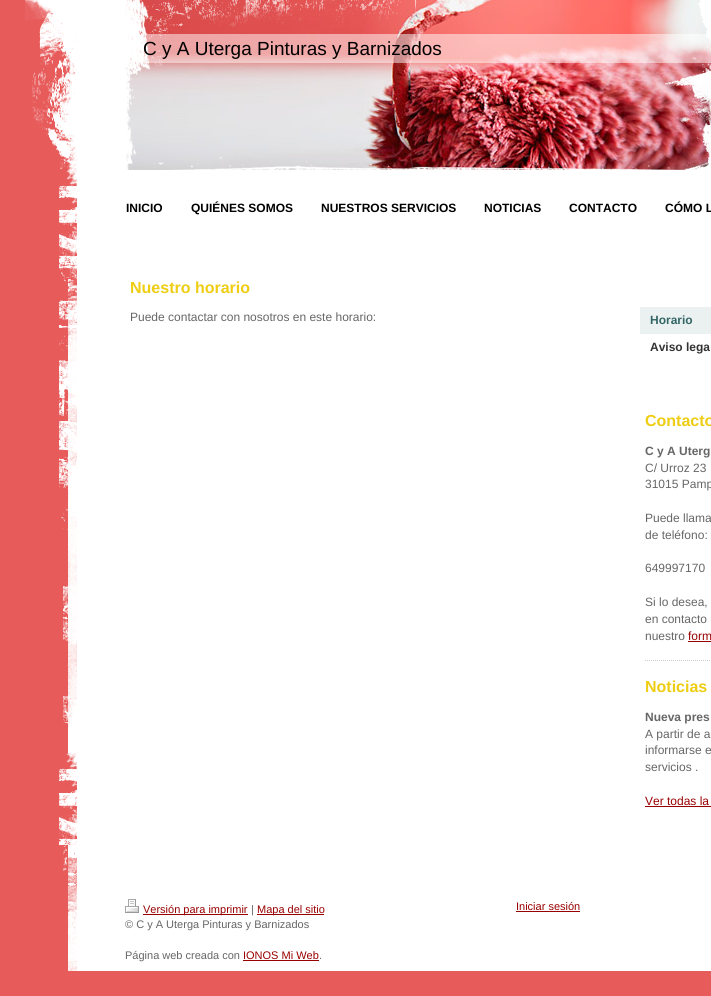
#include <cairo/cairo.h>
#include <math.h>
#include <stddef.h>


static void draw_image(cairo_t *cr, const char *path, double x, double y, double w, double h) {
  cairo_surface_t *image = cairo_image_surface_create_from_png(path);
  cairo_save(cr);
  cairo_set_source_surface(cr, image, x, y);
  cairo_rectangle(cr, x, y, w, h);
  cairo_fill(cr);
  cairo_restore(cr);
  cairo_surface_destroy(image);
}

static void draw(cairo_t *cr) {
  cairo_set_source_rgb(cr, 231 / 255.0, 91 / 255.0, 91 / 255.0);
  cairo_paint(cr);
  draw_image(cr, "images/3.png", 125, 0, 586, 170);
  draw_image(cr, "images/1.png", 25, 0, 686, 27);
  draw_image(cr, "images/2.png", 32, 27, 140, 129);
  draw_image(cr, "images/4.png", 662, 27, 49, 129);
  cairo_set_source_rgba(cr, 1, 1, 1, 0.5);
  cairo_rectangle(cr, 130, 34, 581, 29);
  cairo_fill(cr);
  draw_image(cr, "images/5.png", 59, 156, 652, 14);
  draw_image(cr, "images/6.png", 59, 170, 652, 675);
  cairo_set_source_rgb(cr, 235 / 255.0, 240 / 255.0, 240 / 255.0);
  cairo_rectangle(cr, 640, 307, 71, 27);
  cairo_fill(cr);
  cairo_set_source_rgb(cr, 153 / 255.0, 0, 0);
  cairo_rectangle(cr, 688, 641, 23, 1);
  cairo_fill(cr);
  cairo_new_path(cr);
  cairo_move_to(cr, 645, 660.5);
  cairo_line_to(cr, 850, 660.5);
  cairo_set_source_rgb(cr, 204 / 255.0, 204 / 255.0, 204 / 255.0);
  cairo_set_line_width(cr, 1);
  cairo_set_dash(cr, (double[]){1, 1}, 2, 0);
  cairo_stroke(cr);
  cairo_set_source_rgb(cr, 153 / 255.0, 0, 0);
  cairo_rectangle(cr, 645, 806, 66, 1);
  cairo_fill(cr);
  draw_image(cr, "images/7.png", 63, 845, 648, 126);
  draw_image(cr, "images/8.png", 125, 899, 14, 14);
  cairo_rectangle(cr, 143, 914, 105, 1);
  cairo_fill(cr);
  cairo_rectangle(cr, 257, 914, 67, 1);
  cairo_fill(cr);
  cairo_rectangle(cr, 243, 960, 76, 1);
  cairo_fill(cr);
  cairo_rectangle(cr, 516, 911, 64, 1);
  cairo_fill(cr);
  cairo_select_font_face(cr, "Liberation Sans", CAIRO_FONT_SLANT_NORMAL, CAIRO_FONT_WEIGHT_NORMAL);
  cairo_set_font_size(cr, 19);
  cairo_set_source_rgb(cr, 0, 0, 0);
  cairo_move_to(cr, 143, 55);
  cairo_show_text(cr, "C y A Uterga Pinturas y Barnizados");
  cairo_select_font_face(cr, "Liberation Sans", CAIRO_FONT_SLANT_NORMAL, CAIRO_FONT_WEIGHT_BOLD);
  cairo_set_font_size(cr, 12);
  cairo_move_to(cr, 126, 212);
  cairo_show_text(cr, "INICIO");
  cairo_move_to(cr, 191, 212);
  cairo_show_text(cr, "QUIÉNES SOMOS");
  cairo_move_to(cr, 321, 212);
  cairo_show_text(cr, "NUESTROS SERVICIOS");
  cairo_move_to(cr, 484, 212);
  cairo_show_text(cr, "NOTICIAS");
  cairo_move_to(cr, 569, 212);
  cairo_show_text(cr, "CONTACTO");
  cairo_move_to(cr, 665, 212);
  cairo_show_text(cr, "CÓMO L");
  cairo_set_font_size(cr, 16);
  cairo_set_source_rgb(cr, 238 / 255.0, 205 / 255.0, 18 / 255.0);
  cairo_move_to(cr, 130, 293);
  cairo_show_text(cr, "Nuestro horario");
  cairo_select_font_face(cr, "Liberation Sans", CAIRO_FONT_SLANT_NORMAL, CAIRO_FONT_WEIGHT_NORMAL);
  cairo_set_font_size(cr, 12);
  cairo_set_source_rgb(cr, 102 / 255.0, 102 / 255.0, 102 / 255.0);
  cairo_move_to(cr, 130, 321);
  cairo_show_text(cr, "Puede contactar con nosotros en este horario:");
  cairo_select_font_face(cr, "Liberation Sans", CAIRO_FONT_SLANT_NORMAL, CAIRO_FONT_WEIGHT_BOLD);
  cairo_set_source_rgb(cr, 51 / 255.0, 102 / 255.0, 102 / 255.0);
  cairo_move_to(cr, 650, 324);
  cairo_show_text(cr, "Horario");
  cairo_set_source_rgb(cr, 51 / 255.0, 51 / 255.0, 51 / 255.0);
  cairo_move_to(cr, 650, 351);
  cairo_show_text(cr, "Aviso lega");
  cairo_set_font_size(cr, 16);
  cairo_set_source_rgb(cr, 238 / 255.0, 205 / 255.0, 18 / 255.0);
  cairo_move_to(cr, 645, 426);
  cairo_show_text(cr, "Contacto");
  cairo_set_font_size(cr, 12);
  cairo_set_source_rgb(cr, 102 / 255.0, 102 / 255.0, 102 / 255.0);
  cairo_move_to(cr, 645, 455);
  cairo_show_text(cr, "C y A Uterg");
  cairo_select_font_face(cr, "Liberation Sans", CAIRO_FONT_SLANT_NORMAL, CAIRO_FONT_WEIGHT_NORMAL);
  cairo_move_to(cr, 645, 472);
  cairo_show_text(cr, "C/ Urroz 23");
  cairo_move_to(cr, 645, 488);
  cairo_show_text(cr, "31015 Pamp");
  cairo_move_to(cr, 645, 522);
  cairo_show_text(cr, "Puede llama");
  cairo_move_to(cr, 645, 539);
  cairo_show_text(cr, "de teléfono:");
  cairo_move_to(cr, 645, 572);
  cairo_show_text(cr, "649997170");
  cairo_move_to(cr, 645, 606);
  cairo_show_text(cr, "Si lo desea,");
  cairo_move_to(cr, 645, 623);
  cairo_show_text(cr, "en contacto");
  cairo_move_to(cr, 645, 640);
  cairo_show_text(cr, "nuestro");
  cairo_set_source_rgb(cr, 153 / 255.0, 0, 0);
  cairo_move_to(cr, 688, 640);
  cairo_show_text(cr, "form");
  cairo_select_font_face(cr, "Liberation Sans", CAIRO_FONT_SLANT_NORMAL, CAIRO_FONT_WEIGHT_BOLD);
  cairo_set_font_size(cr, 16);
  cairo_set_source_rgb(cr, 238 / 255.0, 205 / 255.0, 18 / 255.0);
  cairo_move_to(cr, 645, 692);
  cairo_show_text(cr, "Noticias");
  cairo_set_font_size(cr, 12);
  cairo_set_source_rgb(cr, 102 / 255.0, 102 / 255.0, 102 / 255.0);
  cairo_move_to(cr, 645, 721);
  cairo_show_text(cr, "Nueva pres");
  cairo_select_font_face(cr, "Liberation Sans", CAIRO_FONT_SLANT_NORMAL, CAIRO_FONT_WEIGHT_NORMAL);
  cairo_move_to(cr, 645, 738);
  cairo_show_text(cr, "A partir de a");
  cairo_move_to(cr, 645, 754);
  cairo_show_text(cr, "informarse e");
  cairo_move_to(cr, 645, 771);
  cairo_show_text(cr, "servicios .");
  cairo_set_source_rgb(cr, 153 / 255.0, 0, 0);
  cairo_move_to(cr, 645, 805);
  cairo_show_text(cr, "Ver todas la");
  cairo_set_font_size(cr, 11);
  cairo_move_to(cr, 143, 913);
  cairo_show_text(cr, "Versión para imprimir");
  cairo_set_source_rgb(cr, 102 / 255.0, 102 / 255.0, 102 / 255.0);
  cairo_move_to(cr, 251, 913);
  cairo_show_text(cr, "|");
  cairo_set_source_rgb(cr, 153 / 255.0, 0, 0);
  cairo_move_to(cr, 257, 913);
  cairo_show_text(cr, "Mapa del sitio");
  cairo_set_source_rgb(cr, 102 / 255.0, 102 / 255.0, 102 / 255.0);
  cairo_move_to(cr, 125, 928);
  cairo_show_text(cr, "© C y A Uterga Pinturas y Barnizados");
  cairo_move_to(cr, 125, 959);
  cairo_show_text(cr, "Página web creada con");
  cairo_set_source_rgb(cr, 153 / 255.0, 0, 0);
  cairo_move_to(cr, 243, 959);
  cairo_show_text(cr, "IONOS Mi Web");
  cairo_set_source_rgb(cr, 102 / 255.0, 102 / 255.0, 102 / 255.0);
  cairo_move_to(cr, 319, 959);
  cairo_show_text(cr, ".");
  cairo_set_source_rgb(cr, 153 / 255.0, 0, 0);
  cairo_move_to(cr, 516, 910);
  cairo_show_text(cr, "Iniciar sesión");
}

int main(void) {
  cairo_surface_t *surface = cairo_image_surface_create(CAIRO_FORMAT_RGB24, 711, 996);
  cairo_t *cr = cairo_create(surface);
  cairo_font_options_t *options = cairo_font_options_create();
  cairo_font_options_set_hint_metrics(options, CAIRO_HINT_METRICS_OFF);
  cairo_font_options_set_hint_style(options, CAIRO_HINT_STYLE_NONE);
  cairo_set_font_options(cr, options);
  cairo_set_miter_limit(cr, 4);
  draw(cr);
  cairo_surface_write_to_png(surface, "out.png");
  cairo_font_options_destroy(options);
  cairo_destroy(cr);
  cairo_surface_destroy(surface);
  return 0;
}
